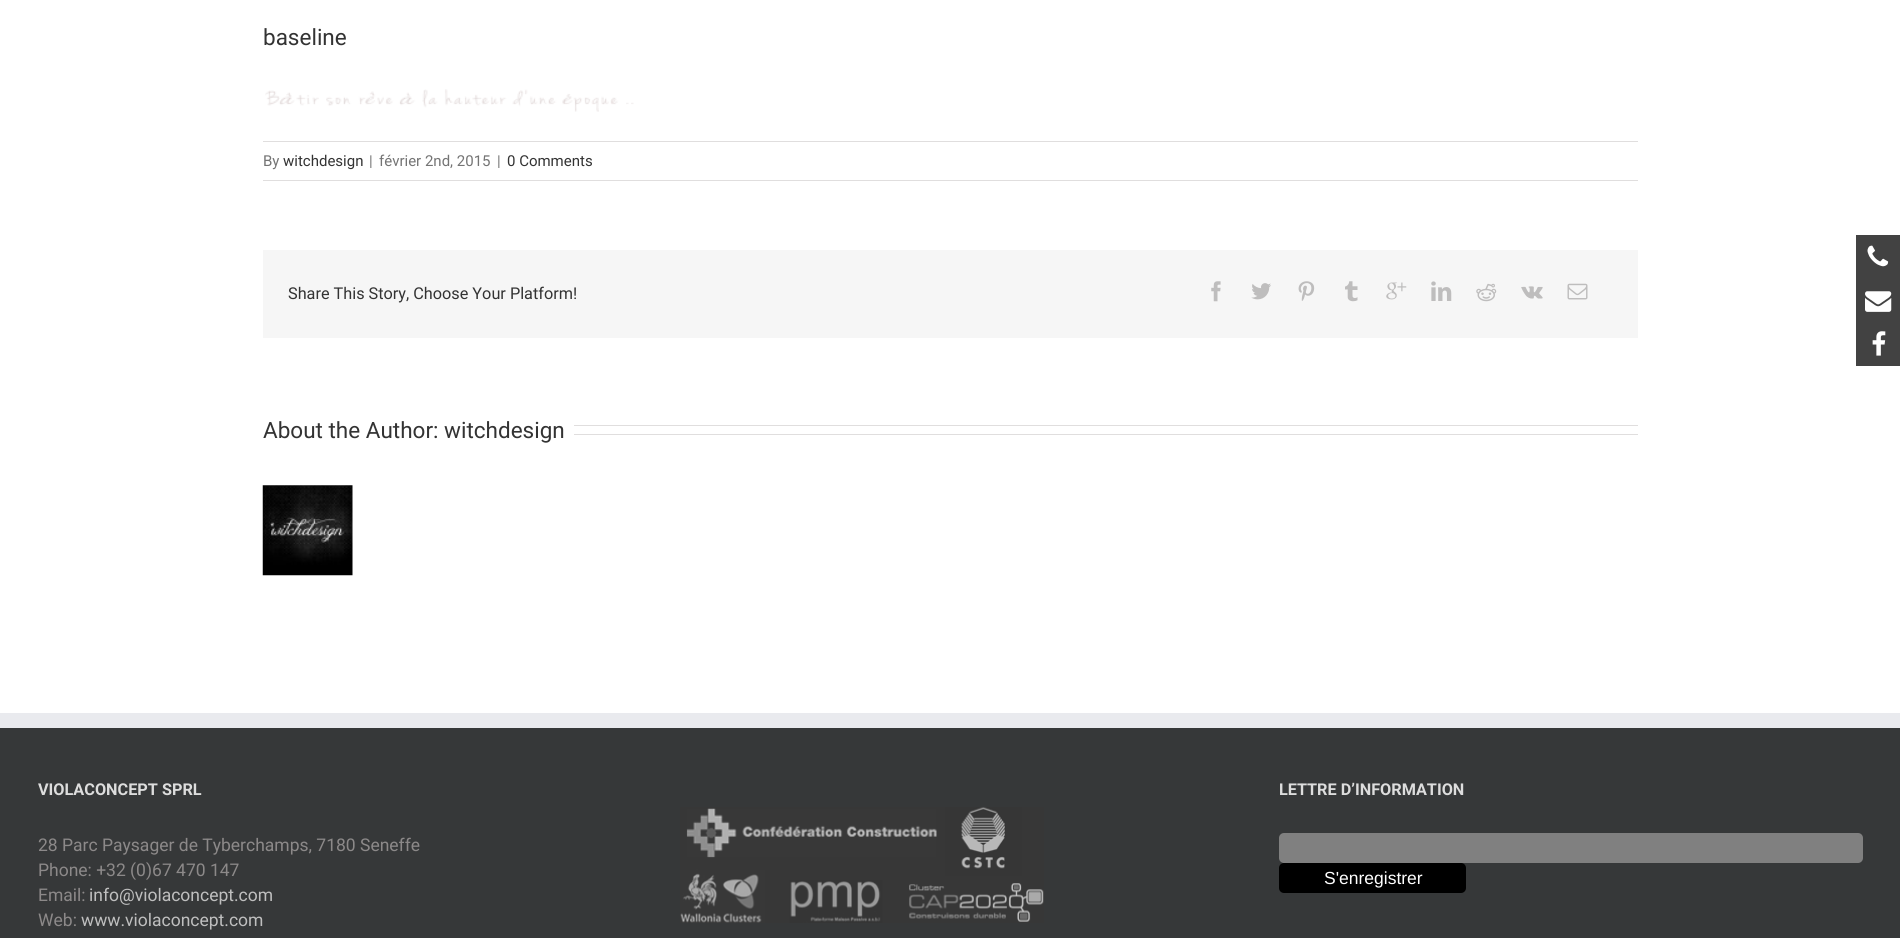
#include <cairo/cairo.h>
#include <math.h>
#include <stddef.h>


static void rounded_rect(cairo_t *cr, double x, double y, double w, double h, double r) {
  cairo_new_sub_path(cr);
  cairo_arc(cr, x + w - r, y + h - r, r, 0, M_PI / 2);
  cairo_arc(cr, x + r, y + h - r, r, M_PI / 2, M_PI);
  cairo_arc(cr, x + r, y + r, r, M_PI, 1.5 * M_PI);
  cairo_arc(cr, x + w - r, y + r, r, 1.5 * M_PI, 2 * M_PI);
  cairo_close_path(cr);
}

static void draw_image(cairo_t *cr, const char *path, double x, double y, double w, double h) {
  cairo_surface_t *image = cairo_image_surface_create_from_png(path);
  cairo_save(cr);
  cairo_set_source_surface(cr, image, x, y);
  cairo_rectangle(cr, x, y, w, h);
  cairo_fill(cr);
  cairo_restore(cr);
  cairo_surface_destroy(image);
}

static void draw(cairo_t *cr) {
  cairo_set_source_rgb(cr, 1, 1, 1);
  cairo_paint(cr);
  draw_image(cr, "images/1.png", 265, 89, 369, 23);
  cairo_set_source_rgb(cr, 224 / 255.0, 222 / 255.0, 222 / 255.0);
  cairo_rectangle(cr, 263, 141, 1375, 1);
  cairo_fill(cr);
  cairo_rectangle(cr, 263, 180, 1375, 1);
  cairo_fill(cr);
  cairo_set_source_rgb(cr, 246 / 255.0, 246 / 255.0, 246 / 255.0);
  cairo_rectangle(cr, 263, 250, 1375, 88);
  cairo_fill(cr);
  draw_image(cr, "images/2.png", 1211, 281, 10, 21);
  draw_image(cr, "images/3.png", 1251, 283, 20, 17);
  draw_image(cr, "images/4.png", 1298, 281, 17, 20);
  draw_image(cr, "images/5.png", 1345, 281, 13, 21);
  draw_image(cr, "images/6.png", 1386, 282, 21, 18);
  draw_image(cr, "images/7.png", 1431, 281, 21, 20);
  draw_image(cr, "images/8.png", 1476, 283, 21, 19);
  draw_image(cr, "images/9.png", 1521, 286, 22, 13);
  draw_image(cr, "images/10.png", 1567, 283, 21, 17);
  cairo_set_source_rgb(cr, 224 / 255.0, 222 / 255.0, 222 / 255.0);
  cairo_rectangle(cr, 574, 425, 1064, 1);
  cairo_fill(cr);
  cairo_rectangle(cr, 574, 434, 1064, 1);
  cairo_fill(cr);
  draw_image(cr, "images/11.png", 262, 485, 91, 91);
  cairo_set_source_rgb(cr, 54 / 255.0, 56 / 255.0, 57 / 255.0);
  cairo_rectangle(cr, 0, 728, 1900, 210);
  cairo_fill(cr);
  cairo_set_source_rgb(cr, 233 / 255.0, 234 / 255.0, 238 / 255.0);
  cairo_rectangle(cr, 0, 713, 1900, 15);
  cairo_fill(cr);
  draw_image(cr, "images/12.png", 680, 807, 364, 116);
  cairo_set_source_rgb(cr, 128 / 255.0, 128 / 255.0, 128 / 255.0);
  rounded_rect(cr, 1279, 833, 584, 30, 5);
  cairo_fill(cr);
  cairo_set_source_rgb(cr, 0, 0, 0);
  rounded_rect(cr, 1279, 863, 187, 30, 5);
  cairo_fill(cr);
  cairo_set_source_rgb(cr, 66 / 255.0, 66 / 255.0, 66 / 255.0);
  cairo_rectangle(cr, 1856, 235, 44, 131);
  cairo_fill(cr);
  draw_image(cr, "images/13.png", 1867, 245, 22, 22);
  draw_image(cr, "images/14.png", 1865, 291, 27, 21);
  draw_image(cr, "images/15.png", 1872, 331, 14, 25);
  cairo_select_font_face(cr, "Roboto", CAIRO_FONT_SLANT_NORMAL, CAIRO_FONT_WEIGHT_NORMAL);
  cairo_set_font_size(cr, 22.5);
  cairo_set_source_rgb(cr, 51 / 255.0, 51 / 255.0, 51 / 255.0);
  cairo_move_to(cr, 263, 45);
  cairo_show_text(cr, "baseline");
  cairo_set_font_size(cr, 15);
  cairo_set_source_rgb(cr, 116 / 255.0, 116 / 255.0, 116 / 255.0);
  cairo_move_to(cr, 263, 166);
  cairo_show_text(cr, "By");
  cairo_set_source_rgb(cr, 51 / 255.0, 51 / 255.0, 51 / 255.0);
  cairo_move_to(cr, 283, 166);
  cairo_show_text(cr, "witchdesign");
  cairo_set_source_rgb(cr, 116 / 255.0, 116 / 255.0, 116 / 255.0);
  cairo_move_to(cr, 369, 166);
  cairo_show_text(cr, "|");
  cairo_move_to(cr, 379, 166);
  cairo_show_text(cr, "février 2nd, 2015");
  cairo_move_to(cr, 497, 166);
  cairo_show_text(cr, "|");
  cairo_set_source_rgb(cr, 51 / 255.0, 51 / 255.0, 51 / 255.0);
  cairo_move_to(cr, 507, 166);
  cairo_show_text(cr, "0 Comments");
  cairo_set_font_size(cr, 16.25);
  cairo_move_to(cr, 288, 299);
  cairo_show_text(cr, "Share This Story, Choose Your Platform!");
  cairo_set_font_size(cr, 22.5);
  cairo_move_to(cr, 263, 438);
  cairo_show_text(cr, "About the Author: witchdesign");
  cairo_select_font_face(cr, "Roboto", CAIRO_FONT_SLANT_NORMAL, CAIRO_FONT_WEIGHT_BOLD);
  cairo_set_font_size(cr, 16.25);
  cairo_set_source_rgb(cr, 221 / 255.0, 221 / 255.0, 221 / 255.0);
  cairo_move_to(cr, 38, 795);
  cairo_show_text(cr, "VIOLACONCEPT SPRL");
  cairo_select_font_face(cr, "Roboto", CAIRO_FONT_SLANT_NORMAL, CAIRO_FONT_WEIGHT_NORMAL);
  cairo_set_font_size(cr, 17.5);
  cairo_set_source_rgb(cr, 140 / 255.0, 137 / 255.0, 137 / 255.0);
  cairo_move_to(cr, 38, 851);
  cairo_show_text(cr, "28 Parc Paysager de Tyberchamps, 7180 Seneffe");
  cairo_move_to(cr, 38, 876);
  cairo_show_text(cr, "Phone: +32 (0)67 470 147");
  cairo_move_to(cr, 38, 901);
  cairo_show_text(cr, "Email:");
  cairo_set_source_rgb(cr, 191 / 255.0, 191 / 255.0, 191 / 255.0);
  cairo_move_to(cr, 89, 901);
  cairo_show_text(cr, "info@violaconcept.com");
  cairo_set_source_rgb(cr, 140 / 255.0, 137 / 255.0, 137 / 255.0);
  cairo_move_to(cr, 38, 926);
  cairo_show_text(cr, "Web:");
  cairo_set_source_rgb(cr, 191 / 255.0, 191 / 255.0, 191 / 255.0);
  cairo_move_to(cr, 81, 926);
  cairo_show_text(cr, "www.violaconcept.com");
  cairo_select_font_face(cr, "Roboto", CAIRO_FONT_SLANT_NORMAL, CAIRO_FONT_WEIGHT_BOLD);
  cairo_set_font_size(cr, 16.25);
  cairo_set_source_rgb(cr, 221 / 255.0, 221 / 255.0, 221 / 255.0);
  cairo_move_to(cr, 1279, 795);
  cairo_show_text(cr, "LETTRE D’INFORMATION");
  cairo_select_font_face(cr, "Liberation Sans", CAIRO_FONT_SLANT_NORMAL, CAIRO_FONT_WEIGHT_NORMAL);
  cairo_set_font_size(cr, 17.5);
  cairo_set_source_rgb(cr, 1, 1, 1);
  cairo_move_to(cr, 1324, 884);
  cairo_show_text(cr, "S'enregistrer");
}

int main(void) {
  cairo_surface_t *surface = cairo_image_surface_create(CAIRO_FORMAT_RGB24, 1900, 938);
  cairo_t *cr = cairo_create(surface);
  cairo_font_options_t *options = cairo_font_options_create();
  cairo_font_options_set_hint_metrics(options, CAIRO_HINT_METRICS_OFF);
  cairo_font_options_set_hint_style(options, CAIRO_HINT_STYLE_NONE);
  cairo_set_font_options(cr, options);
  cairo_set_miter_limit(cr, 4);
  draw(cr);
  cairo_surface_write_to_png(surface, "out.png");
  cairo_font_options_destroy(options);
  cairo_destroy(cr);
  cairo_surface_destroy(surface);
  return 0;
}
